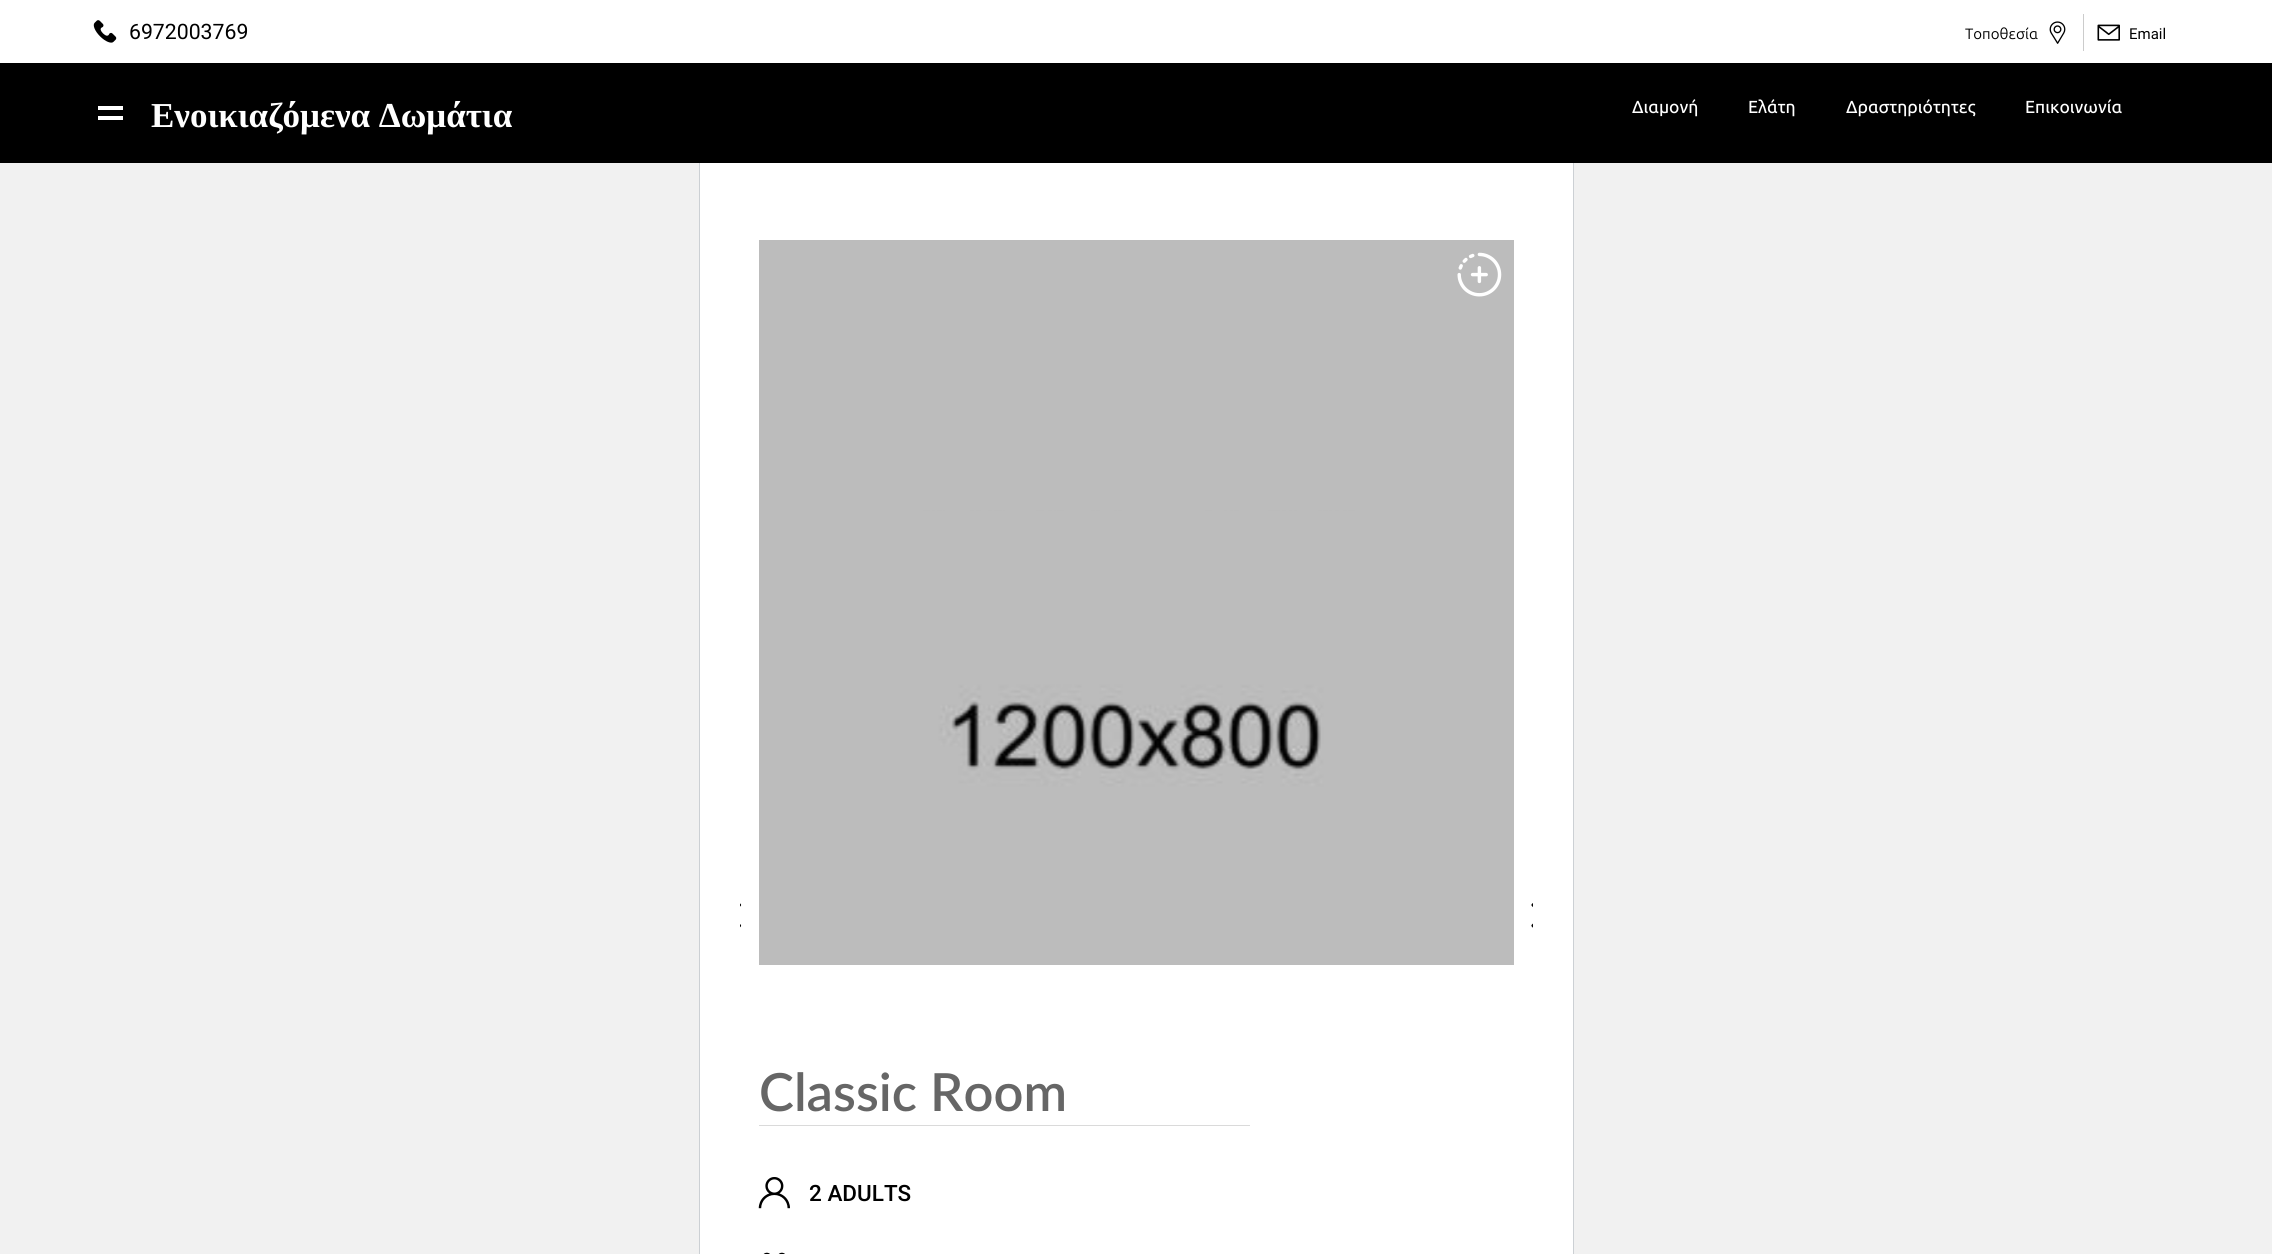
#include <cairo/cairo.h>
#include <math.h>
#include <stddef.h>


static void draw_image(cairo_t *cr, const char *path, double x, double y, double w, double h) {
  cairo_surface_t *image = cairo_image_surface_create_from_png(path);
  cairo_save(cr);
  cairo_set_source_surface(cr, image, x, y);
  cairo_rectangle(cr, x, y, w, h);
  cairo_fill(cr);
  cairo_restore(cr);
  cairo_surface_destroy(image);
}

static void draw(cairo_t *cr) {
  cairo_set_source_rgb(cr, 241 / 255.0, 241 / 255.0, 241 / 255.0);
  cairo_paint(cr);
  cairo_set_source_rgb(cr, 1, 1, 1);
  cairo_rectangle(cr, 700, 163, 873, 1091);
  cairo_fill(cr);
  cairo_rectangle(cr, 699.5, 63.5, 874, 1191);
  cairo_set_source_rgb(cr, 204 / 255.0, 208 / 255.0, 212 / 255.0);
  cairo_set_line_width(cr, 1);
  cairo_stroke(cr);
  cairo_set_source_rgb(cr, 0, 0, 0);
  cairo_rectangle(cr, 0, 63, 2272, 100);
  cairo_fill(cr);
  cairo_set_source_rgb(cr, 1, 1, 1);
  cairo_rectangle(cr, 0, 0, 2272, 63);
  cairo_fill(cr);
  draw_image(cr, "images/1.png", 93, 20, 24, 23);
  draw_image(cr, "images/2.png", 2049, 21, 17, 23);
  cairo_set_source_rgb(cr, 204 / 255.0, 204 / 255.0, 204 / 255.0);
  cairo_rectangle(cr, 2083, 14, 1, 37);
  cairo_fill(cr);
  draw_image(cr, "images/3.png", 2097, 24, 23, 17);
  cairo_set_source_rgb(cr, 1, 1, 1);
  cairo_rectangle(cr, 98, 106, 25, 4);
  cairo_fill(cr);
  cairo_rectangle(cr, 98, 116, 25, 4);
  cairo_fill(cr);
  draw_image(cr, "images/4.png", 759, 240, 755, 271);
  draw_image(cr, "images/5.png", 1457, 252, 45, 45);
  draw_image(cr, "images/6.png", 740, 903, 2, 25);
  draw_image(cr, "images/7.png", 759, 511, 755, 454);
  draw_image(cr, "images/8.png", 1531, 903, 2, 25);
  cairo_set_source_rgb(cr, 218 / 255.0, 218 / 255.0, 218 / 255.0);
  cairo_rectangle(cr, 759, 1125, 491, 1);
  cairo_fill(cr);
  draw_image(cr, "images/9.png", 758, 1177, 32, 32);
  draw_image(cr, "images/10.png", 763, 1252, 22, 2);
  cairo_select_font_face(cr, "Roboto", CAIRO_FONT_SLANT_NORMAL, CAIRO_FONT_WEIGHT_NORMAL);
  cairo_set_font_size(cr, 21.25);
  cairo_set_source_rgb(cr, 0, 0, 0);
  cairo_move_to(cr, 129, 39);
  cairo_show_text(cr, "6972003769");
  cairo_select_font_face(cr, "Ubuntu", CAIRO_FONT_SLANT_NORMAL, CAIRO_FONT_WEIGHT_NORMAL);
  cairo_set_font_size(cr, 15);
  cairo_move_to(cr, 1965, 39);
  cairo_show_text(cr, "Τοποθεσία");
  cairo_select_font_face(cr, "Roboto", CAIRO_FONT_SLANT_NORMAL, CAIRO_FONT_WEIGHT_NORMAL);
  cairo_move_to(cr, 2129, 39);
  cairo_show_text(cr, "Email");
  cairo_select_font_face(cr, "Liberation Serif", CAIRO_FONT_SLANT_NORMAL, CAIRO_FONT_WEIGHT_BOLD);
  cairo_set_font_size(cr, 35);
  cairo_set_source_rgb(cr, 1, 1, 1);
  cairo_move_to(cr, 151, 127);
  cairo_show_text(cr, "Ενοικιαζόμενα Δωμάτια");
  cairo_select_font_face(cr, "Ubuntu Medium", CAIRO_FONT_SLANT_NORMAL, CAIRO_FONT_WEIGHT_NORMAL);
  cairo_set_font_size(cr, 17.5);
  cairo_move_to(cr, 1632, 113);
  cairo_show_text(cr, "Διαμονή");
  cairo_move_to(cr, 1748, 113);
  cairo_show_text(cr, "Ελάτη");
  cairo_move_to(cr, 1846, 113);
  cairo_show_text(cr, "Δραστηριότητες");
  cairo_move_to(cr, 2025, 113);
  cairo_show_text(cr, "Επικοινωνία");
  cairo_select_font_face(cr, "Lato SemiBold", CAIRO_FONT_SLANT_NORMAL, CAIRO_FONT_WEIGHT_NORMAL);
  cairo_set_font_size(cr, 52.5);
  cairo_set_source_rgb(cr, 102 / 255.0, 102 / 255.0, 102 / 255.0);
  cairo_move_to(cr, 759, 1111);
  cairo_show_text(cr, "Classic Room");
  cairo_select_font_face(cr, "Roboto Medium", CAIRO_FONT_SLANT_NORMAL, CAIRO_FONT_WEIGHT_NORMAL);
  cairo_set_font_size(cr, 22.5);
  cairo_set_source_rgb(cr, 0, 0, 0);
  cairo_move_to(cr, 809, 1201);
  cairo_show_text(cr, "2 ADULTS");
}

int main(void) {
  cairo_surface_t *surface = cairo_image_surface_create(CAIRO_FORMAT_RGB24, 2272, 1254);
  cairo_t *cr = cairo_create(surface);
  cairo_font_options_t *options = cairo_font_options_create();
  cairo_font_options_set_hint_metrics(options, CAIRO_HINT_METRICS_OFF);
  cairo_font_options_set_hint_style(options, CAIRO_HINT_STYLE_NONE);
  cairo_set_font_options(cr, options);
  cairo_set_miter_limit(cr, 4);
  draw(cr);
  cairo_surface_write_to_png(surface, "out.png");
  cairo_font_options_destroy(options);
  cairo_destroy(cr);
  cairo_surface_destroy(surface);
  return 0;
}
